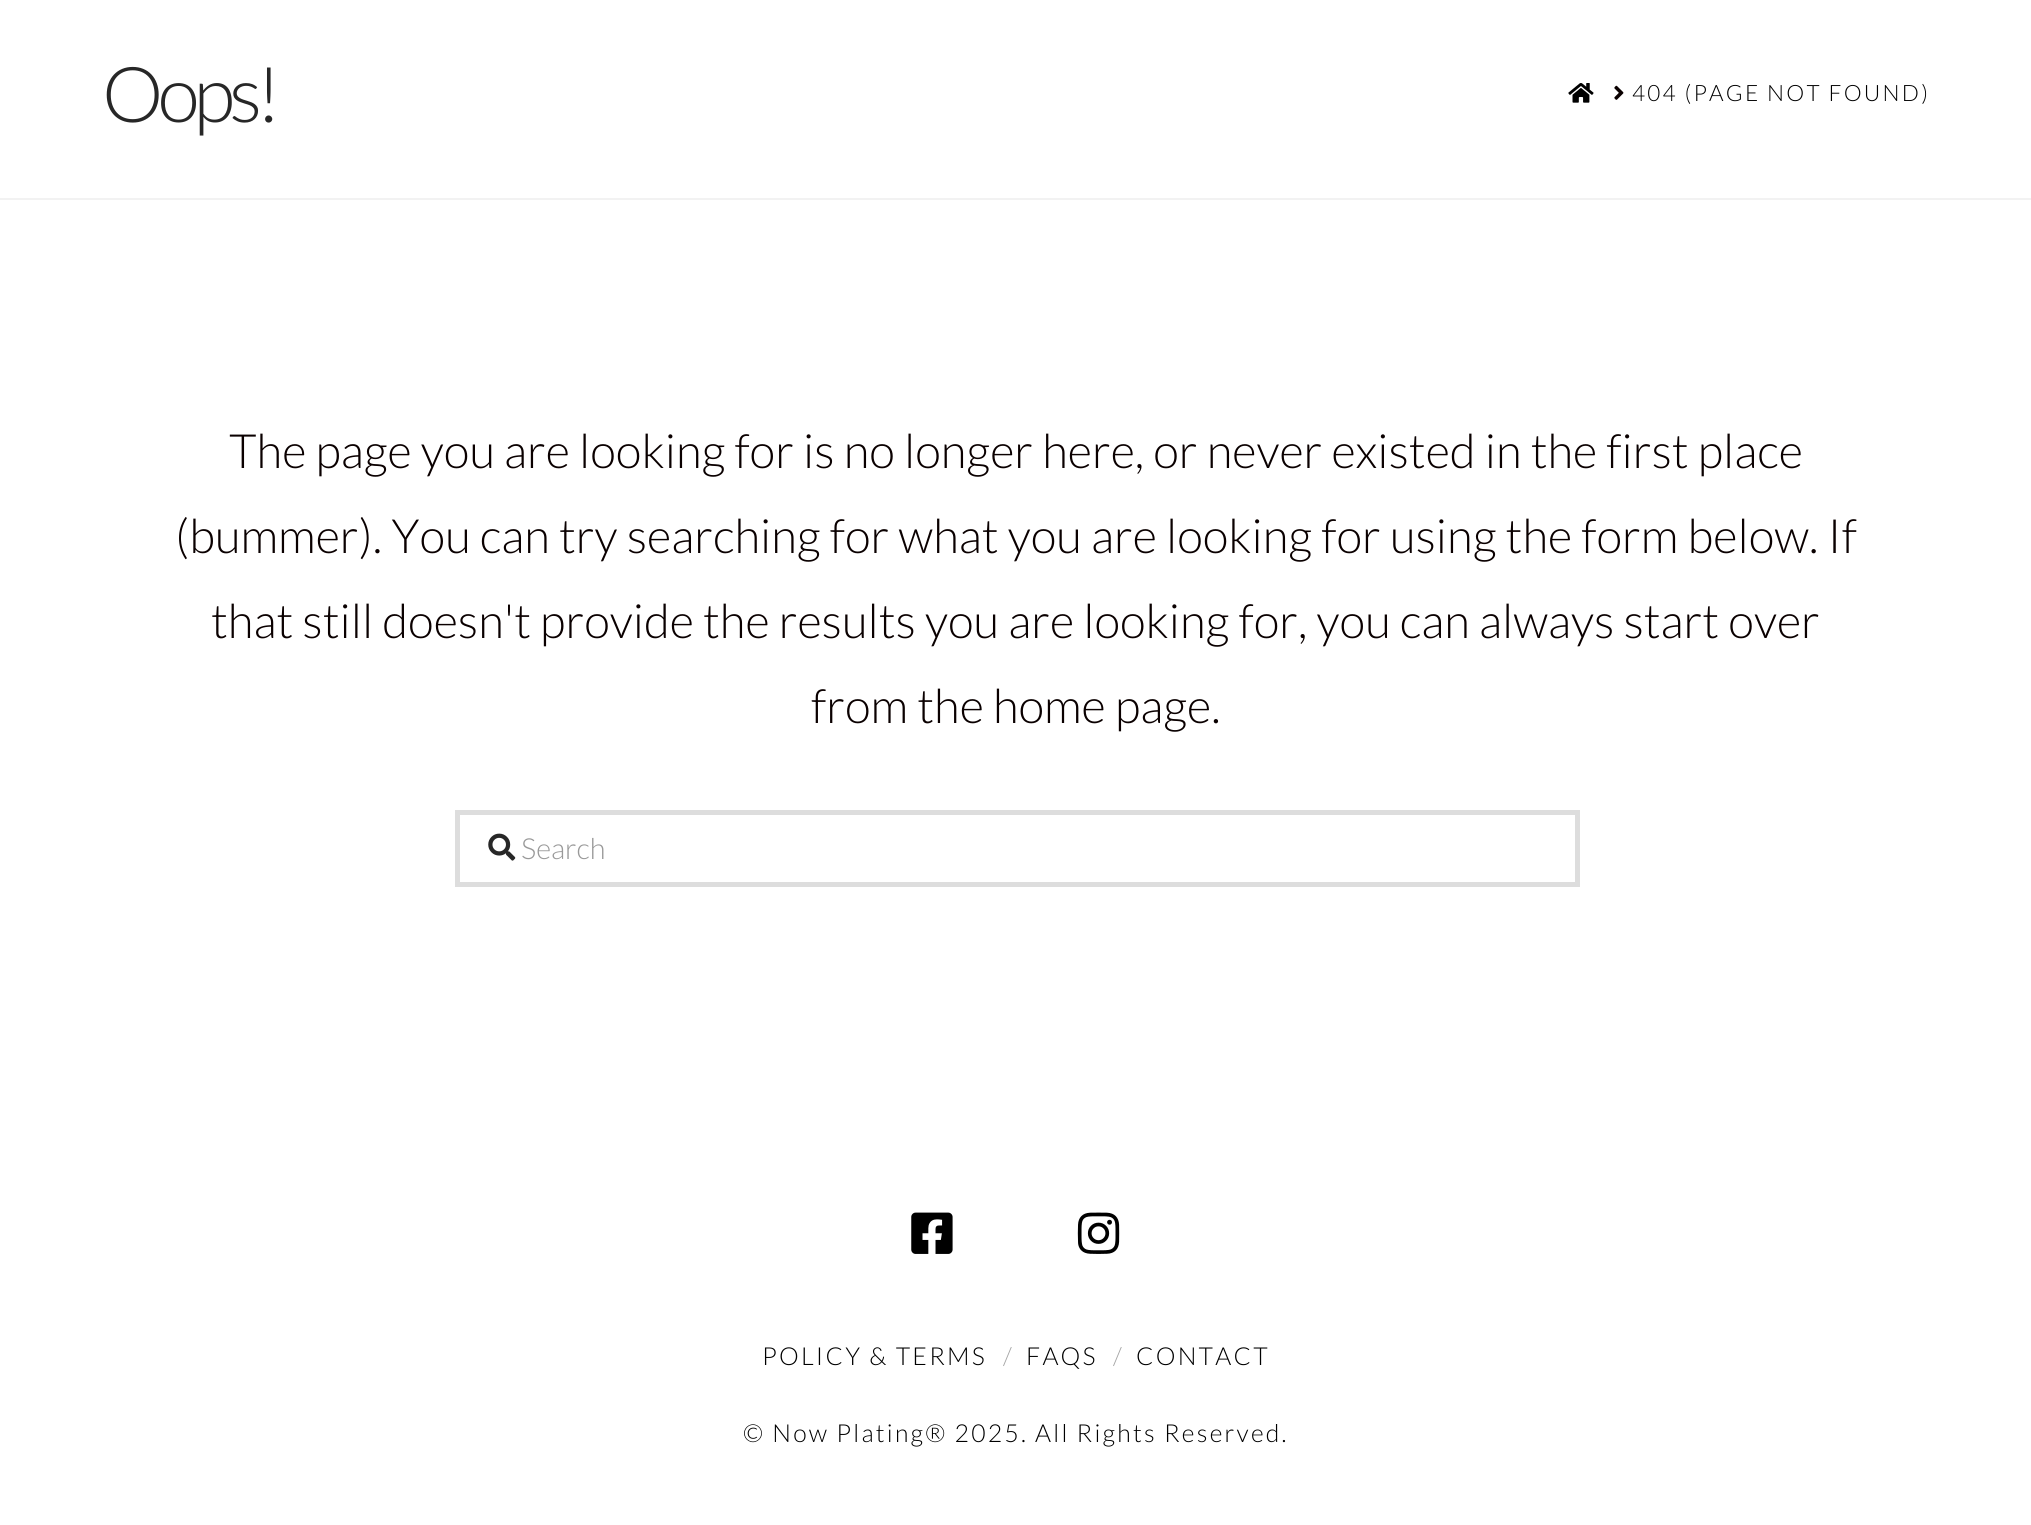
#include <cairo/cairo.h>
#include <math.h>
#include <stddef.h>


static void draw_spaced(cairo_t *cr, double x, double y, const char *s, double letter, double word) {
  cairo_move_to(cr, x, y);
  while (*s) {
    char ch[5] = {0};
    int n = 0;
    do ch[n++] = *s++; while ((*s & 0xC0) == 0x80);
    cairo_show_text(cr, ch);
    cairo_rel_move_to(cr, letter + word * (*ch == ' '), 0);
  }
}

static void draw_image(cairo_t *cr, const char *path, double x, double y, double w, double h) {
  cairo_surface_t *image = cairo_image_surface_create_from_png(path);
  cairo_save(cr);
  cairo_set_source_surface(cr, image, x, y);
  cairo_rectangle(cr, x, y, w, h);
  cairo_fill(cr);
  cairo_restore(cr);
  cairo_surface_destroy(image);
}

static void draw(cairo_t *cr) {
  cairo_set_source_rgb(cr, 1, 1, 1);
  cairo_paint(cr);
  cairo_set_source_rgb(cr, 242 / 255.0, 242 / 255.0, 242 / 255.0);
  cairo_rectangle(cr, 0, 198, 2031, 2);
  cairo_fill(cr);
  draw_image(cr, "images/1.png", 1568, 83, 26, 20);
  draw_image(cr, "images/2.png", 1614, 85, 10, 15);
  cairo_rectangle(cr, 457.5, 812.5, 1120, 72);
  cairo_set_source_rgb(cr, 221 / 255.0, 221 / 255.0, 221 / 255.0);
  cairo_set_line_width(cr, 5);
  cairo_stroke(cr);
  draw_image(cr, "images/3.png", 488, 833, 28, 28);
  draw_image(cr, "images/4.png", 911, 1212, 42, 42);
  draw_image(cr, "images/5.png", 1077, 1212, 43, 42);
  cairo_select_font_face(cr, "Lato Light", CAIRO_FONT_SLANT_NORMAL, CAIRO_FONT_WEIGHT_NORMAL);
  cairo_set_font_size(cr, 77);
  cairo_set_source_rgb(cr, 39 / 255.0, 39 / 255.0, 39 / 255.0);
  draw_spaced(cr, 102, 122, "Oops!", -5.75, 0);
  cairo_set_font_size(cr, 22.5);
  cairo_set_source_rgb(cr, 0, 0, 0);
  draw_spaced(cr, 1632, 101, "404 (PAGE NOT FOUND)", 2.25, 0);
  cairo_set_font_size(cr, 47.25);
  cairo_set_source_rgb(cr, 10 / 255.0, 0, 0);
  cairo_move_to(cr, 229, 468);
  cairo_show_text(cr, "The page you are looking for is no longer here, or never existed in the first place");
  cairo_move_to(cr, 175, 553);
  cairo_show_text(cr, "(bummer). You can try searching for what you are looking for using the form below. If");
  cairo_move_to(cr, 211, 638);
  cairo_show_text(cr, "that still doesn't provide the results you are looking for, you can always start over");
  cairo_move_to(cr, 811, 723);
  cairo_show_text(cr, "from the home page.");
  cairo_set_font_size(cr, 29);
  cairo_set_source_rgb(cr, 153 / 255.0, 153 / 255.0, 153 / 255.0);
  cairo_move_to(cr, 521, 859);
  cairo_show_text(cr, "Search");
  cairo_set_font_size(cr, 24.75);
  cairo_set_source_rgb(cr, 0, 0, 0);
  draw_spaced(cr, 762, 1365, "POLICY & TERMS", 2.25, 0);
  cairo_set_source_rgb(cr, 166 / 255.0, 166 / 255.0, 166 / 255.0);
  cairo_move_to(cr, 1003, 1365);
  cairo_show_text(cr, "/");
  cairo_set_source_rgb(cr, 0, 0, 0);
  draw_spaced(cr, 1026, 1365, "FAQS", 2.25, 0);
  cairo_set_source_rgb(cr, 166 / 255.0, 166 / 255.0, 166 / 255.0);
  cairo_move_to(cr, 1113, 1365);
  cairo_show_text(cr, "/");
  cairo_set_source_rgb(cr, 0, 0, 0);
  draw_spaced(cr, 1136, 1365, "CONTACT", 2.25, 0);
  draw_spaced(cr, 743, 1442, "© Now Plating® 2025. All Rights Reserved.", 2.25, 0);
}

int main(void) {
  cairo_surface_t *surface = cairo_image_surface_create(CAIRO_FORMAT_RGB24, 2031, 1525);
  cairo_t *cr = cairo_create(surface);
  cairo_font_options_t *options = cairo_font_options_create();
  cairo_font_options_set_hint_metrics(options, CAIRO_HINT_METRICS_OFF);
  cairo_font_options_set_hint_style(options, CAIRO_HINT_STYLE_NONE);
  cairo_set_font_options(cr, options);
  cairo_set_miter_limit(cr, 4);
  draw(cr);
  cairo_surface_write_to_png(surface, "out.png");
  cairo_font_options_destroy(options);
  cairo_destroy(cr);
  cairo_surface_destroy(surface);
  return 0;
}
